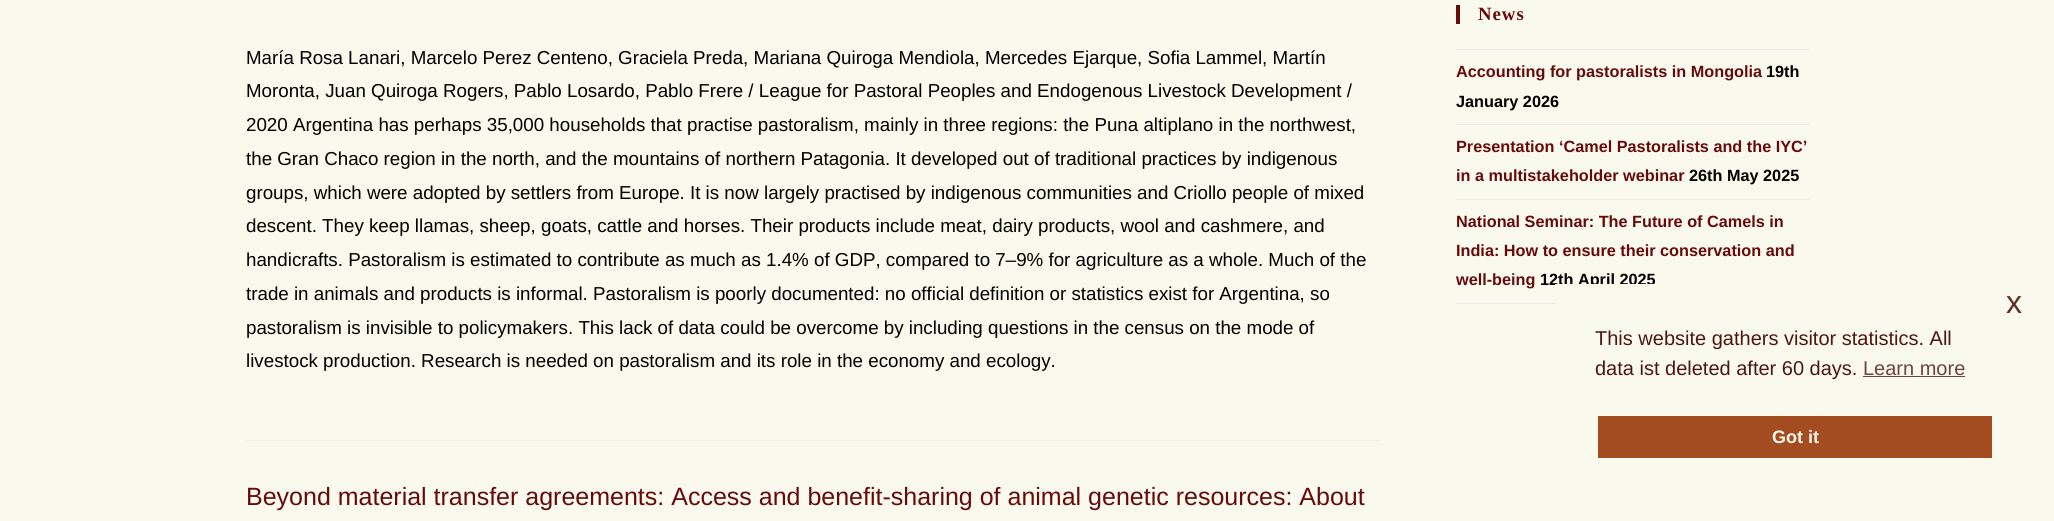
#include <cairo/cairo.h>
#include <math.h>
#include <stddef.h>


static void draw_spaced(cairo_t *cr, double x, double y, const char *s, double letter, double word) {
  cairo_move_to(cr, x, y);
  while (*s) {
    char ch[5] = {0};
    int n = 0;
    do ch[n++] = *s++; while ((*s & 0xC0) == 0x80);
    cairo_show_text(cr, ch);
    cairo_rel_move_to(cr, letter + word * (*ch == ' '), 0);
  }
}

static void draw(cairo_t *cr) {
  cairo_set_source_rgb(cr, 250 / 255.0, 249 / 255.0, 237 / 255.0);
  cairo_paint(cr);
  cairo_set_source_rgb(cr, 241 / 255.0, 241 / 255.0, 241 / 255.0);
  cairo_rectangle(cr, 246, 440, 1134, 1);
  cairo_fill(cr);
  cairo_set_source_rgb(cr, 102 / 255.0, 13 / 255.0, 11 / 255.0);
  cairo_rectangle(cr, 1456, 5, 4, 19);
  cairo_fill(cr);
  cairo_set_source_rgb(cr, 233 / 255.0, 233 / 255.0, 233 / 255.0);
  cairo_rectangle(cr, 1456, 49, 353, 1);
  cairo_fill(cr);
  cairo_rectangle(cr, 1456, 124, 353, 1);
  cairo_fill(cr);
  cairo_rectangle(cr, 1456, 199, 353, 1);
  cairo_fill(cr);
  cairo_rectangle(cr, 1456, 303, 99, 1);
  cairo_fill(cr);
  cairo_set_source_rgb(cr, 111 / 255.0, 68 / 255.0, 61 / 255.0);
  cairo_rectangle(cr, 1863, 376, 102, 1);
  cairo_fill(cr);
  cairo_set_source_rgb(cr, 163 / 255.0, 76 / 255.0, 34 / 255.0);
  cairo_rectangle(cr, 1598, 416, 394, 42);
  cairo_fill(cr);
  cairo_select_font_face(cr, "Liberation Sans", CAIRO_FONT_SLANT_NORMAL, CAIRO_FONT_WEIGHT_NORMAL);
  cairo_set_font_size(cr, 18.75);
  cairo_set_source_rgb(cr, 0, 0, 0);
  cairo_move_to(cr, 246, 64);
  cairo_show_text(cr, "María Rosa Lanari, Marcelo Perez Centeno, Graciela Preda, Mariana Quiroga Mendiola, Mercedes Ejarque, Sofia Lammel, Martín");
  cairo_move_to(cr, 246, 97);
  cairo_show_text(cr, "Moronta, Juan Quiroga Rogers, Pablo Losardo, Pablo Frere / League for Pastoral Peoples and Endogenous Livestock Development /");
  cairo_move_to(cr, 246, 131);
  cairo_show_text(cr, "2020 Argentina has perhaps 35,000 households that practise pastoralism, mainly in three regions: the Puna altiplano in the northwest,");
  cairo_move_to(cr, 246, 165);
  cairo_show_text(cr, "the Gran Chaco region in the north, and the mountains of northern Patagonia. It developed out of traditional practices by indigenous");
  cairo_move_to(cr, 246, 199);
  cairo_show_text(cr, "groups, which were adopted by settlers from Europe. It is now largely practised by indigenous communities and Criollo people of mixed");
  cairo_move_to(cr, 246, 232);
  cairo_show_text(cr, "descent. They keep llamas, sheep, goats, cattle and horses. Their products include meat, dairy products, wool and cashmere, and");
  cairo_move_to(cr, 246, 266);
  cairo_show_text(cr, "handicrafts. Pastoralism is estimated to contribute as much as 1.4% of GDP, compared to 7–9% for agriculture as a whole. Much of the");
  cairo_move_to(cr, 246, 300);
  cairo_show_text(cr, "trade in animals and products is informal. Pastoralism is poorly documented: no official definition or statistics exist for Argentina, so");
  cairo_move_to(cr, 246, 334);
  cairo_show_text(cr, "pastoralism is invisible to policymakers. This lack of data could be overcome by including questions in the census on the mode of");
  cairo_move_to(cr, 246, 367);
  cairo_show_text(cr, "livestock production. Research is needed on pastoralism and its role in the economy and ecology.");
  cairo_set_font_size(cr, 25);
  cairo_set_source_rgb(cr, 102 / 255.0, 11 / 255.0, 13 / 255.0);
  cairo_move_to(cr, 246, 505);
  cairo_show_text(cr, "Beyond material transfer agreements: Access and benefit-sharing of animal genetic resources: About");
  cairo_select_font_face(cr, "Liberation Serif", CAIRO_FONT_SLANT_NORMAL, CAIRO_FONT_WEIGHT_BOLD);
  cairo_set_font_size(cr, 18.75);
  draw_spaced(cr, 1478, 20, "News", 1, 0);
  cairo_select_font_face(cr, "Liberation Sans", CAIRO_FONT_SLANT_NORMAL, CAIRO_FONT_WEIGHT_BOLD);
  cairo_set_font_size(cr, 16.25);
  cairo_move_to(cr, 1456, 77);
  cairo_show_text(cr, "Accounting for pastoralists in Mongolia");
  cairo_set_source_rgb(cr, 0, 0, 0);
  cairo_move_to(cr, 1766, 77);
  cairo_show_text(cr, "19th");
  cairo_move_to(cr, 1456, 107);
  cairo_show_text(cr, "January 2026");
  cairo_set_source_rgb(cr, 102 / 255.0, 11 / 255.0, 13 / 255.0);
  cairo_move_to(cr, 1456, 152);
  cairo_show_text(cr, "Presentation ‘Camel Pastoralists and the IYC’");
  cairo_move_to(cr, 1456, 181);
  cairo_show_text(cr, "in a multistakeholder webinar");
  cairo_set_source_rgb(cr, 0, 0, 0);
  cairo_move_to(cr, 1689, 181);
  cairo_show_text(cr, "26th May 2025");
  cairo_set_source_rgb(cr, 102 / 255.0, 11 / 255.0, 13 / 255.0);
  cairo_move_to(cr, 1456, 227);
  cairo_show_text(cr, "National Seminar: The Future of Camels in");
  cairo_move_to(cr, 1456, 256);
  cairo_show_text(cr, "India: How to ensure their conservation and");
  cairo_move_to(cr, 1456, 285);
  cairo_show_text(cr, "well-being");
  cairo_set_source_rgb(cr, 0, 0, 0);
  cairo_move_to(cr, 1540, 285);
  cairo_show_text(cr, "12th April 2025");
  cairo_set_source_rgb(cr, 249 / 255.0, 248 / 255.0, 235 / 255.0);
  cairo_rectangle(cr, 1555, 284, 99, 5);
  cairo_fill(cr);
  cairo_select_font_face(cr, "Liberation Sans", CAIRO_FONT_SLANT_NORMAL, CAIRO_FONT_WEIGHT_NORMAL);
  cairo_set_font_size(cr, 32);
  cairo_set_source_rgb(cr, 94 / 255.0, 46 / 255.0, 39 / 255.0);
  cairo_move_to(cr, 2006, 313);
  cairo_show_text(cr, "x");
  cairo_set_font_size(cr, 20);
  cairo_set_source_rgb(cr, 77 / 255.0, 23 / 255.0, 17 / 255.0);
  cairo_move_to(cr, 1595, 345);
  cairo_show_text(cr, "This website gathers visitor statistics. All");
  cairo_move_to(cr, 1595, 375);
  cairo_show_text(cr, "data ist deleted after 60 days.");
  cairo_set_source_rgb(cr, 111 / 255.0, 68 / 255.0, 61 / 255.0);
  cairo_move_to(cr, 1863, 375);
  cairo_show_text(cr, "Learn more");
  cairo_select_font_face(cr, "Liberation Sans", CAIRO_FONT_SLANT_NORMAL, CAIRO_FONT_WEIGHT_BOLD);
  cairo_set_font_size(cr, 18);
  cairo_set_source_rgb(cr, 249 / 255.0, 248 / 255.0, 235 / 255.0);
  cairo_move_to(cr, 1772, 443);
  cairo_show_text(cr, "Got it");
}

int main(void) {
  cairo_surface_t *surface = cairo_image_surface_create(CAIRO_FORMAT_RGB24, 2054, 521);
  cairo_t *cr = cairo_create(surface);
  cairo_font_options_t *options = cairo_font_options_create();
  cairo_font_options_set_hint_metrics(options, CAIRO_HINT_METRICS_OFF);
  cairo_font_options_set_hint_style(options, CAIRO_HINT_STYLE_NONE);
  cairo_set_font_options(cr, options);
  cairo_set_miter_limit(cr, 4);
  draw(cr);
  cairo_surface_write_to_png(surface, "out.png");
  cairo_font_options_destroy(options);
  cairo_destroy(cr);
  cairo_surface_destroy(surface);
  return 0;
}
